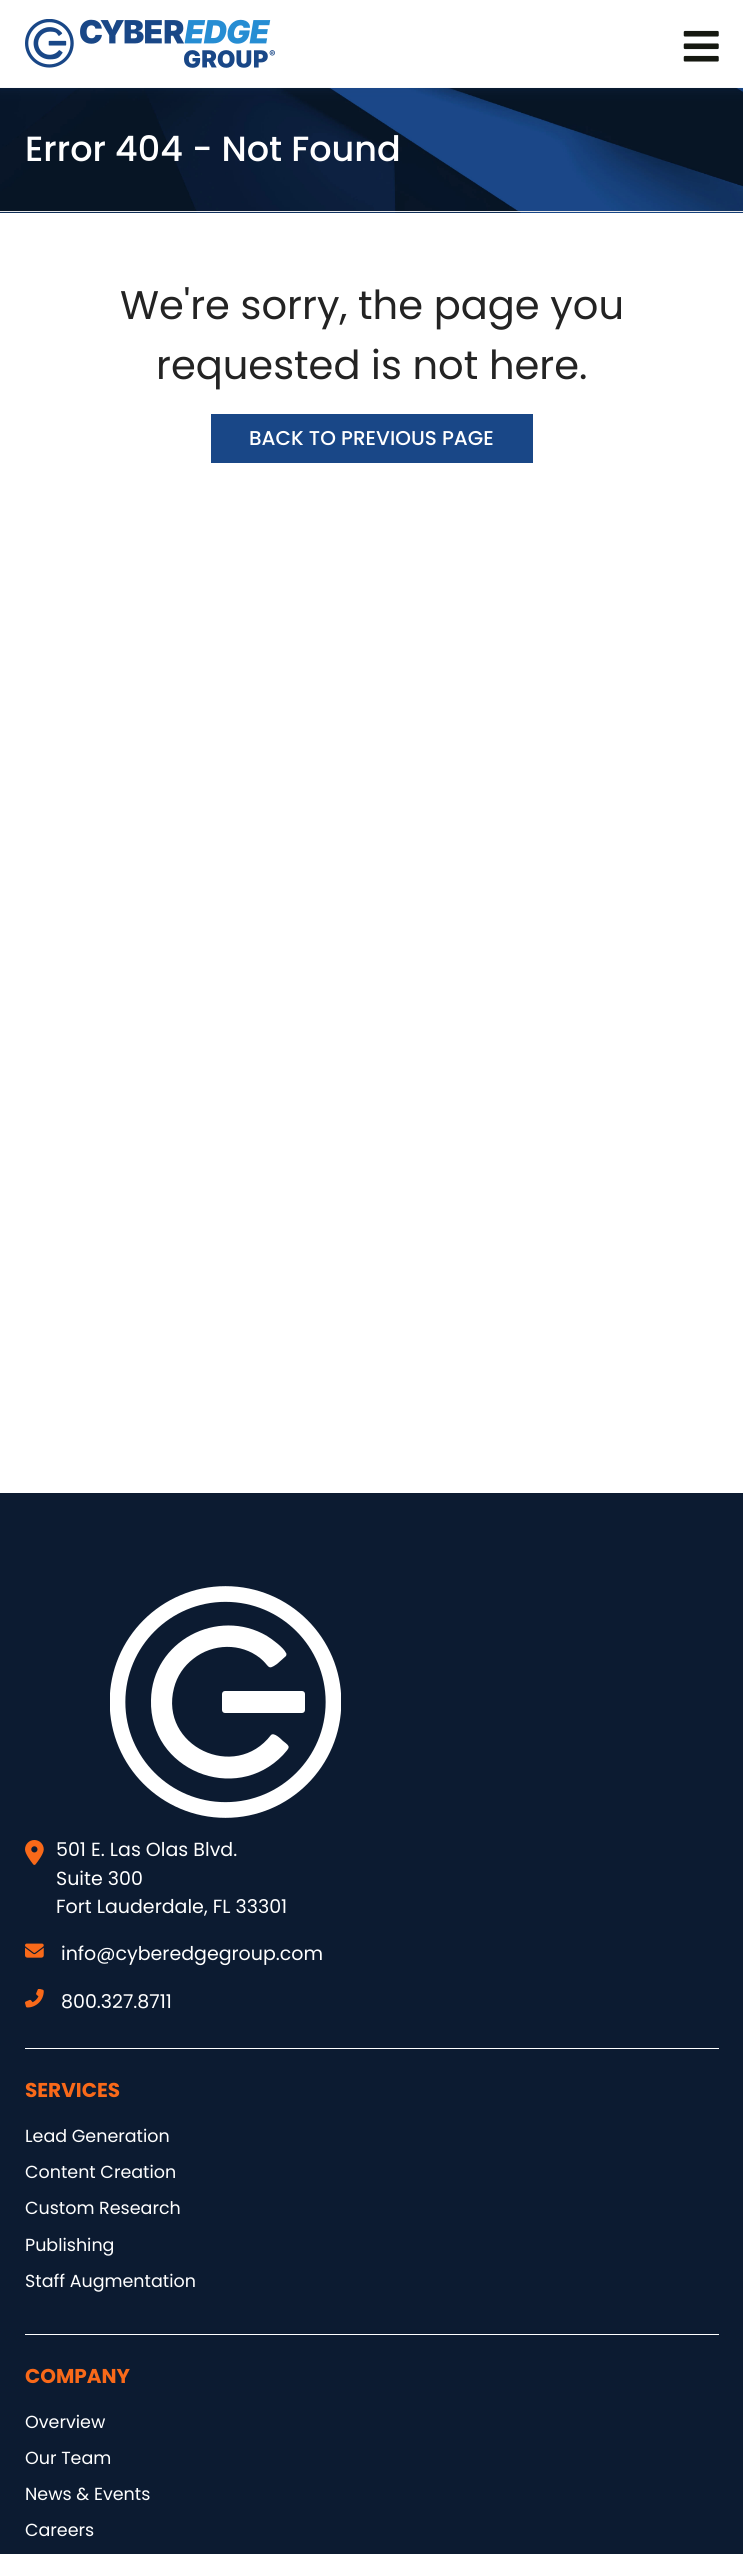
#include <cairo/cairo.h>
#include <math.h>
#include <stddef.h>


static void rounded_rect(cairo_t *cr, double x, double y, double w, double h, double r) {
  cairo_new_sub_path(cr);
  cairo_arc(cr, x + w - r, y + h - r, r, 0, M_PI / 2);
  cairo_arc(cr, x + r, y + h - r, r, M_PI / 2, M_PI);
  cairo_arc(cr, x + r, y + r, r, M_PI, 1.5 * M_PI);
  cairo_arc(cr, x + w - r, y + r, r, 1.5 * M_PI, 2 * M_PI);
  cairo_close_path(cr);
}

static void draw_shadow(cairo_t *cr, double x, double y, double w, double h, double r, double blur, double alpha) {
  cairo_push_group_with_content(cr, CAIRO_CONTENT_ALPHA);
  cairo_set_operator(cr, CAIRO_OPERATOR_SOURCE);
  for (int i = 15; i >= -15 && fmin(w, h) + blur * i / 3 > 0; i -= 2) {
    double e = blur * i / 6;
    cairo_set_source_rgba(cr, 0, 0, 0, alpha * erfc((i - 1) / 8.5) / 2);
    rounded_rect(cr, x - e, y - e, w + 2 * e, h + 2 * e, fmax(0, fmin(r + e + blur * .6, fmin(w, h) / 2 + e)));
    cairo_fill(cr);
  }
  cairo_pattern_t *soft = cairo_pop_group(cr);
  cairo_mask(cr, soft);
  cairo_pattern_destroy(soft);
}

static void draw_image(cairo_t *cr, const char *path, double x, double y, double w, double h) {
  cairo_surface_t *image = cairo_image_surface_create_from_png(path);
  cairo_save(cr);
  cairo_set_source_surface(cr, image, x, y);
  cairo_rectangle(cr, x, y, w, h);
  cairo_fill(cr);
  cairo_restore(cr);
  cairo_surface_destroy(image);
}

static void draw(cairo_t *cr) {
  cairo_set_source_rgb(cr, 1, 1, 1);
  cairo_paint(cr);
  cairo_set_source_rgb(cr, 25 / 255.0, 71 / 255.0, 135 / 255.0);
  cairo_rectangle(cr, 0, 212, 743, 1);
  cairo_fill(cr);
  draw_image(cr, "images/3.png", 0, 87, 743, 126);
  cairo_set_source_rgba(cr, 1, 1, 1, 0.95);
  cairo_rectangle(cr, 0, 87, 743, 1);
  cairo_fill(cr);
  cairo_save(cr);
  cairo_set_fill_rule(cr, CAIRO_FILL_RULE_EVEN_ODD);
  cairo_new_path(cr);
  cairo_move_to(cr, 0, 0);
  cairo_line_to(cr, 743, 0);
  cairo_line_to(cr, 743, 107);
  cairo_line_to(cr, 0, 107);
  cairo_close_path(cr);
  cairo_move_to(cr, 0, 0);
  cairo_line_to(cr, 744, 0);
  cairo_line_to(cr, 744, 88);
  cairo_line_to(cr, 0, 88);
  cairo_close_path(cr);
  cairo_clip(cr);
  cairo_set_source_rgb(cr, 25 / 255.0, 71 / 255.0, 135 / 255.0);
  draw_shadow(cr, 0, 0, 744, 88, 0, 6, 0.25);
  cairo_restore(cr);
  draw_image(cr, "images/1.png", 25, 19, 250, 49);
  draw_image(cr, "images/2.png", 683, 30, 36, 32);
  cairo_set_source_rgb(cr, 230 / 255.0, 231 / 255.0, 232 / 255.0);
  cairo_rectangle(cr, 0, 211, 743, 1);
  cairo_fill(cr);
  cairo_set_source_rgb(cr, 25 / 255.0, 71 / 255.0, 135 / 255.0);
  cairo_rectangle(cr, 211, 414, 322, 49);
  cairo_fill(cr);
  cairo_set_source_rgb(cr, 12 / 255.0, 27 / 255.0, 49 / 255.0);
  cairo_rectangle(cr, 0, 1493, 743, 1061);
  cairo_fill(cr);
  cairo_save(cr);
  cairo_rectangle(cr, 110, 1586, 231, 232);
  cairo_clip(cr);
  cairo_arc(cr, 225.5, 1702, 108, 0, 2 * M_PI);
  cairo_set_source_rgb(cr, 1, 1, 1);
  cairo_set_line_width(cr, 15.7);
  cairo_stroke(cr);
  cairo_restore(cr);
  cairo_set_source_rgb(cr, 1, 1, 1);
  cairo_new_path(cr);
  cairo_move_to(cr, 271, 1735);
  cairo_curve_to(cr, 235, 1782, 159, 1746, 174, 1688);
  cairo_curve_to(cr, 177, 1676, 184, 1666, 193, 1659);
  cairo_curve_to(cr, 213, 1643, 241, 1643, 260, 1658);
  cairo_curve_to(cr, 270, 1666, 267, 1671, 277, 1664);
  cairo_line_to(cr, 286, 1656);
  cairo_curve_to(cr, 286, 1656, 287, 1654, 286, 1653);
  cairo_curve_to(cr, 284, 1648, 272, 1639, 267, 1636);
  cairo_curve_to(cr, 218, 1607, 152, 1641, 151, 1700);
  cairo_curve_to(cr, 149, 1770, 235, 1805, 283, 1755);
  cairo_curve_to(cr, 290, 1747, 291, 1747, 283, 1741);
  cairo_curve_to(cr, 281, 1739, 274, 1732, 271, 1735);
  cairo_close_path(cr);
  cairo_fill(cr);
  rounded_rect(cr, 222, 1691, 83, 22, 3);
  cairo_fill(cr);
  cairo_rectangle(cr, 25, 2048, 694, 1);
  cairo_fill(cr);
  draw_image(cr, "images/4.png", 25, 1840, 19, 25);
  draw_image(cr, "images/5.png", 25, 1943, 19, 15);
  draw_image(cr, "images/6.png", 25, 1989, 19, 19);
  cairo_rectangle(cr, 25, 2334, 694, 1);
  cairo_fill(cr);
  cairo_select_font_face(cr, "Poppins Medium", CAIRO_FONT_SLANT_NORMAL, CAIRO_FONT_WEIGHT_NORMAL);
  cairo_set_font_size(cr, 35);
  cairo_move_to(cr, 25, 161);
  cairo_show_text(cr, "Error 404 - Not Found");
  cairo_select_font_face(cr, "Poppins", CAIRO_FONT_SLANT_NORMAL, CAIRO_FONT_WEIGHT_NORMAL);
  cairo_set_font_size(cr, 40);
  cairo_set_source_rgb(cr, 35 / 255.0, 35 / 255.0, 35 / 255.0);
  cairo_move_to(cr, 120, 319);
  cairo_show_text(cr, "We're sorry, the page you");
  cairo_move_to(cr, 156, 379);
  cairo_show_text(cr, "requested is not here.");
  cairo_select_font_face(cr, "Poppins Medium", CAIRO_FONT_SLANT_NORMAL, CAIRO_FONT_WEIGHT_NORMAL);
  cairo_set_font_size(cr, 20);
  cairo_set_source_rgb(cr, 1, 1, 1);
  cairo_move_to(cr, 249, 445);
  cairo_show_text(cr, "BACK TO PREVIOUS PAGE");
  cairo_select_font_face(cr, "Poppins", CAIRO_FONT_SLANT_NORMAL, CAIRO_FONT_WEIGHT_NORMAL);
  cairo_set_font_size(cr, 19);
  cairo_move_to(cr, 56, 1856);
  cairo_show_text(cr, "501 E. Las Olas Blvd.");
  cairo_move_to(cr, 56, 1885);
  cairo_show_text(cr, "Suite 300");
  cairo_move_to(cr, 56, 1913);
  cairo_show_text(cr, "Fort Lauderdale, FL 33301");
  cairo_move_to(cr, 61, 1960);
  cairo_show_text(cr, "info@cyberedgegroup.com");
  cairo_move_to(cr, 61, 2008);
  cairo_show_text(cr, "800.327.8711");
  cairo_select_font_face(cr, "Poppins", CAIRO_FONT_SLANT_NORMAL, CAIRO_FONT_WEIGHT_BOLD);
  cairo_set_font_size(cr, 20);
  cairo_set_source_rgb(cr, 249 / 255.0, 105 / 255.0, 25 / 255.0);
  cairo_move_to(cr, 25, 2097);
  cairo_show_text(cr, "SERVICES");
  cairo_select_font_face(cr, "Poppins", CAIRO_FONT_SLANT_NORMAL, CAIRO_FONT_WEIGHT_NORMAL);
  cairo_set_font_size(cr, 17.5);
  cairo_set_source_rgb(cr, 1, 1, 1);
  cairo_move_to(cr, 25, 2142);
  cairo_show_text(cr, "Lead Generation");
  cairo_move_to(cr, 25, 2178);
  cairo_show_text(cr, "Content Creation");
  cairo_move_to(cr, 25, 2214);
  cairo_show_text(cr, "Custom Research");
  cairo_move_to(cr, 25, 2251);
  cairo_show_text(cr, "Publishing");
  cairo_move_to(cr, 25, 2287);
  cairo_show_text(cr, "Staff Augmentation");
  cairo_select_font_face(cr, "Poppins", CAIRO_FONT_SLANT_NORMAL, CAIRO_FONT_WEIGHT_BOLD);
  cairo_set_font_size(cr, 20);
  cairo_set_source_rgb(cr, 249 / 255.0, 105 / 255.0, 25 / 255.0);
  cairo_move_to(cr, 25, 2383);
  cairo_show_text(cr, "COMPANY");
  cairo_select_font_face(cr, "Poppins", CAIRO_FONT_SLANT_NORMAL, CAIRO_FONT_WEIGHT_NORMAL);
  cairo_set_font_size(cr, 17.5);
  cairo_set_source_rgb(cr, 1, 1, 1);
  cairo_move_to(cr, 25, 2428);
  cairo_show_text(cr, "Overview");
  cairo_move_to(cr, 25, 2464);
  cairo_show_text(cr, "Our Team");
  cairo_move_to(cr, 25, 2500);
  cairo_show_text(cr, "News & Events");
  cairo_move_to(cr, 25, 2536);
  cairo_show_text(cr, "Careers");
}

int main(void) {
  cairo_surface_t *surface = cairo_image_surface_create(CAIRO_FORMAT_RGB24, 743, 2554);
  cairo_t *cr = cairo_create(surface);
  cairo_font_options_t *options = cairo_font_options_create();
  cairo_font_options_set_hint_metrics(options, CAIRO_HINT_METRICS_OFF);
  cairo_font_options_set_hint_style(options, CAIRO_HINT_STYLE_NONE);
  cairo_set_font_options(cr, options);
  cairo_set_miter_limit(cr, 4);
  draw(cr);
  cairo_surface_write_to_png(surface, "out.png");
  cairo_font_options_destroy(options);
  cairo_destroy(cr);
  cairo_surface_destroy(surface);
  return 0;
}
